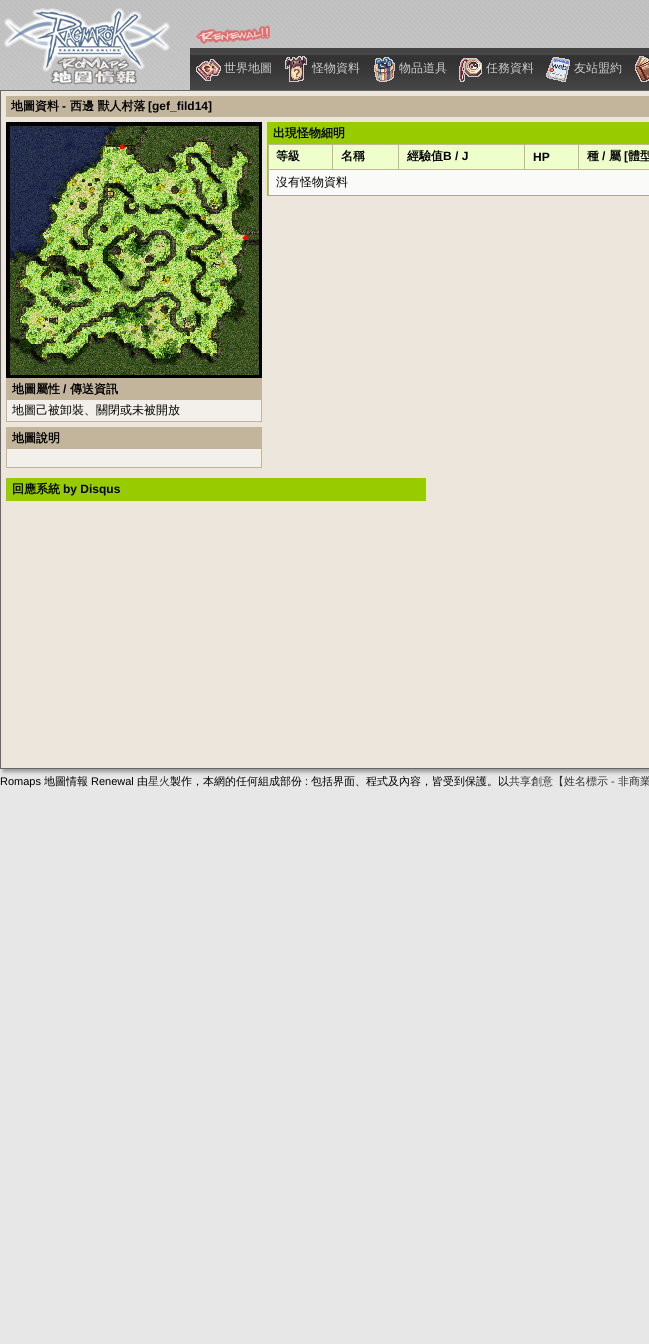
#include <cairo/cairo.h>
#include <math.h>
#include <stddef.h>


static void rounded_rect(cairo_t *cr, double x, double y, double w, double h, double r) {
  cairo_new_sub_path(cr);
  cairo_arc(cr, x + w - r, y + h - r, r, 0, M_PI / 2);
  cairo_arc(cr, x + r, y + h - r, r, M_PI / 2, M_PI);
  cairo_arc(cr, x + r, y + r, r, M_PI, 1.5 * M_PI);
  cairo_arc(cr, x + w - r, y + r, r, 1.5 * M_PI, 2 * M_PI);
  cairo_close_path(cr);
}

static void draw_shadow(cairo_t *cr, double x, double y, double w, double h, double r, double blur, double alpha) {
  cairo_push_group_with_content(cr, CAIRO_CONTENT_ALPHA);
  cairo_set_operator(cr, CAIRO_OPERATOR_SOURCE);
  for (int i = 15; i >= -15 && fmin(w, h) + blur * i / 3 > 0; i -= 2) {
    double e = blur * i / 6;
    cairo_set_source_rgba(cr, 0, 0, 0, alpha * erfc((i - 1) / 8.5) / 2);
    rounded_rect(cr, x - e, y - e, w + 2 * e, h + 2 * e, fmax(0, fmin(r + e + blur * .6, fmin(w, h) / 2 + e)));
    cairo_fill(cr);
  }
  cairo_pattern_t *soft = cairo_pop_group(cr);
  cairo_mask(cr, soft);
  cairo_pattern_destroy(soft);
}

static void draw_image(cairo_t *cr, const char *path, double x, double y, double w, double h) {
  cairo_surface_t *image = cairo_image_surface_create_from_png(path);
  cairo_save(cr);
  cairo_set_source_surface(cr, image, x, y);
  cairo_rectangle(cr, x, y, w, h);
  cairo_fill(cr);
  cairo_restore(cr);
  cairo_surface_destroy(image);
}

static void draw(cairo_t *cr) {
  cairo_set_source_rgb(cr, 231 / 255.0, 231 / 255.0, 231 / 255.0);
  cairo_paint(cr);
  draw_image(cr, "images/1.png", 300, 0, 349, 48);
  cairo_set_source_rgb(cr, 153 / 255.0, 153 / 255.0, 153 / 255.0);
  draw_shadow(cr, 3, 93, 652, 679, 0, 2, 1);
  draw_image(cr, "images/2.png", 0, 0, 300, 90);
  draw_image(cr, "images/3.png", 190, 48, 88, 42);
  draw_image(cr, "images/4.png", 196, 59, 25, 22);
  draw_image(cr, "images/3.png", 278, 48, 88, 42);
  draw_image(cr, "images/5.png", 285, 56, 22, 26);
  draw_image(cr, "images/6.png", 366, 48, 87, 42);
  draw_image(cr, "images/7.png", 374, 57, 21, 25);
  draw_image(cr, "images/6.png", 453, 48, 87, 42);
  draw_image(cr, "images/8.png", 459, 58, 23, 24);
  draw_image(cr, "images/3.png", 540, 48, 88, 42);
  draw_image(cr, "images/9.png", 546, 57, 24, 25);
  draw_image(cr, "images/10.png", 628, 48, 21, 42);
  draw_image(cr, "images/11.png", 635, 56, 14, 26);
  cairo_set_source_rgb(cr, 236 / 255.0, 230 / 255.0, 221 / 255.0);
  cairo_rectangle(cr, 0.5, 90.5, 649, 678);
  cairo_fill_preserve(cr);
  cairo_set_source_rgb(cr, 102 / 255.0, 102 / 255.0, 102 / 255.0);
  cairo_set_line_width(cr, 1);
  cairo_stroke(cr);
  cairo_set_source_rgb(cr, 194 / 255.0, 181 / 255.0, 156 / 255.0);
  cairo_rectangle(cr, 6, 96, 643, 21);
  cairo_fill(cr);
  cairo_rectangle(cr, 267.5, 122.5, 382, 73);
  cairo_set_source_rgb(cr, 153 / 255.0, 204 / 255.0, 0);
  cairo_stroke(cr);
  cairo_rectangle(cr, 268, 123, 381, 21);
  cairo_fill(cr);
  cairo_set_source_rgb(cr, 250 / 255.0, 251 / 255.0, 249 / 255.0);
  cairo_rectangle(cr, 269, 170, 380, 25);
  cairo_fill(cr);
  cairo_set_source_rgb(cr, 238 / 255.0, 1, 204 / 255.0);
  cairo_rectangle(cr, 269, 145, 63, 24);
  cairo_fill(cr);
  cairo_set_source_rgb(cr, 194 / 255.0, 181 / 255.0, 156 / 255.0);
  cairo_rectangle(cr, 578, 144, 71, 1);
  cairo_fill(cr);
  cairo_rectangle(cr, 268, 169, 381, 1);
  cairo_fill(cr);
  cairo_rectangle(cr, 578, 144, 1, 26);
  cairo_fill(cr);
  cairo_rectangle(cr, 524, 144, 55, 1);
  cairo_fill(cr);
  cairo_rectangle(cr, 524, 144, 1, 26);
  cairo_fill(cr);
  cairo_rectangle(cr, 398, 144, 127, 1);
  cairo_fill(cr);
  cairo_rectangle(cr, 398, 144, 1, 26);
  cairo_fill(cr);
  cairo_rectangle(cr, 332, 144, 67, 1);
  cairo_fill(cr);
  cairo_rectangle(cr, 332, 144, 1, 26);
  cairo_fill(cr);
  cairo_rectangle(cr, 268, 144, 65, 1);
  cairo_fill(cr);
  cairo_rectangle(cr, 268, 169, 1, 26);
  cairo_fill(cr);
  cairo_rectangle(cr, 268, 144, 1, 26);
  cairo_fill(cr);
  cairo_set_source_rgb(cr, 238 / 255.0, 1, 204 / 255.0);
  cairo_rectangle(cr, 333, 145, 65, 24);
  cairo_fill(cr);
  cairo_rectangle(cr, 399, 145, 125, 24);
  cairo_fill(cr);
  cairo_rectangle(cr, 525, 145, 53, 24);
  cairo_fill(cr);
  cairo_rectangle(cr, 579, 145, 70, 24);
  cairo_fill(cr);
  draw_image(cr, "images/12.png", 6, 122, 256, 256);
  cairo_rectangle(cr, 6.5, 378.5, 255, 43);
  cairo_set_source_rgb(cr, 194 / 255.0, 181 / 255.0, 156 / 255.0);
  cairo_stroke(cr);
  cairo_rectangle(cr, 7, 379, 254, 21);
  cairo_fill(cr);
  cairo_set_source_rgb(cr, 243 / 255.0, 240 / 255.0, 235 / 255.0);
  cairo_rectangle(cr, 7, 400, 254, 21);
  cairo_fill(cr);
  cairo_rectangle(cr, 6.5, 427.5, 255, 40);
  cairo_set_source_rgb(cr, 194 / 255.0, 181 / 255.0, 156 / 255.0);
  cairo_stroke(cr);
  cairo_rectangle(cr, 7, 428, 254, 21);
  cairo_fill(cr);
  cairo_set_source_rgb(cr, 243 / 255.0, 240 / 255.0, 235 / 255.0);
  cairo_rectangle(cr, 7, 449, 254, 18);
  cairo_fill(cr);
  cairo_rectangle(cr, 6.5, 478.5, 419, 22);
  cairo_set_source_rgb(cr, 153 / 255.0, 204 / 255.0, 0);
  cairo_stroke(cr);
  cairo_rectangle(cr, 7, 479, 418, 21);
  cairo_fill(cr);
  cairo_select_font_face(cr, "WenQuanYi Zen Hei Medium", CAIRO_FONT_SLANT_NORMAL, CAIRO_FONT_WEIGHT_NORMAL);
  cairo_set_font_size(cr, 12);
  cairo_set_source_rgb(cr, 204 / 255.0, 204 / 255.0, 204 / 255.0);
  cairo_move_to(cr, 224, 72);
  cairo_show_text(cr, "世界地圖");
  cairo_move_to(cr, 312, 72);
  cairo_show_text(cr, "怪物資料");
  cairo_move_to(cr, 399, 72);
  cairo_show_text(cr, "物品道具");
  cairo_move_to(cr, 486, 72);
  cairo_show_text(cr, "任務資料");
  cairo_move_to(cr, 574, 72);
  cairo_show_text(cr, "友站盟約");
  cairo_select_font_face(cr, "WenQuanYi Zen Hei", CAIRO_FONT_SLANT_NORMAL, CAIRO_FONT_WEIGHT_BOLD);
  cairo_set_source_rgb(cr, 0, 0, 0);
  cairo_move_to(cr, 11, 110);
  cairo_show_text(cr, "地圖資料");
  cairo_select_font_face(cr, "Liberation Sans", CAIRO_FONT_SLANT_NORMAL, CAIRO_FONT_WEIGHT_BOLD);
  cairo_move_to(cr, 62, 110);
  cairo_show_text(cr, "-");
  cairo_select_font_face(cr, "WenQuanYi Zen Hei", CAIRO_FONT_SLANT_NORMAL, CAIRO_FONT_WEIGHT_BOLD);
  cairo_move_to(cr, 70, 110);
  cairo_show_text(cr, "西邊 獸人村落");
  cairo_select_font_face(cr, "Liberation Sans", CAIRO_FONT_SLANT_NORMAL, CAIRO_FONT_WEIGHT_BOLD);
  cairo_move_to(cr, 148, 110);
  cairo_show_text(cr, "[gef_fild14]");
  cairo_select_font_face(cr, "WenQuanYi Zen Hei", CAIRO_FONT_SLANT_NORMAL, CAIRO_FONT_WEIGHT_BOLD);
  cairo_move_to(cr, 273, 137);
  cairo_show_text(cr, "出現怪物細明");
  cairo_move_to(cr, 276, 160);
  cairo_show_text(cr, "等級");
  cairo_move_to(cr, 341, 160);
  cairo_show_text(cr, "名稱");
  cairo_move_to(cr, 407, 160);
  cairo_show_text(cr, "經驗值");
  cairo_select_font_face(cr, "Liberation Sans", CAIRO_FONT_SLANT_NORMAL, CAIRO_FONT_WEIGHT_BOLD);
  cairo_move_to(cr, 443, 160);
  cairo_show_text(cr, "B / J");
  cairo_move_to(cr, 533, 161);
  cairo_show_text(cr, "HP");
  cairo_select_font_face(cr, "WenQuanYi Zen Hei", CAIRO_FONT_SLANT_NORMAL, CAIRO_FONT_WEIGHT_BOLD);
  cairo_move_to(cr, 587, 160);
  cairo_show_text(cr, "種");
  cairo_select_font_face(cr, "Liberation Sans", CAIRO_FONT_SLANT_NORMAL, CAIRO_FONT_WEIGHT_BOLD);
  cairo_move_to(cr, 602, 160);
  cairo_show_text(cr, "/");
  cairo_select_font_face(cr, "WenQuanYi Zen Hei", CAIRO_FONT_SLANT_NORMAL, CAIRO_FONT_WEIGHT_BOLD);
  cairo_move_to(cr, 609, 160);
  cairo_show_text(cr, "屬");
  cairo_select_font_face(cr, "Liberation Sans", CAIRO_FONT_SLANT_NORMAL, CAIRO_FONT_WEIGHT_BOLD);
  cairo_move_to(cr, 624, 160);
  cairo_show_text(cr, "[");
  cairo_select_font_face(cr, "WenQuanYi Zen Hei", CAIRO_FONT_SLANT_NORMAL, CAIRO_FONT_WEIGHT_BOLD);
  cairo_move_to(cr, 628, 160);
  cairo_show_text(cr, "體型");
  cairo_select_font_face(cr, "WenQuanYi Zen Hei Medium", CAIRO_FONT_SLANT_NORMAL, CAIRO_FONT_WEIGHT_NORMAL);
  cairo_move_to(cr, 276, 186);
  cairo_show_text(cr, "沒有怪物資料");
  cairo_select_font_face(cr, "WenQuanYi Zen Hei", CAIRO_FONT_SLANT_NORMAL, CAIRO_FONT_WEIGHT_BOLD);
  cairo_move_to(cr, 12, 393);
  cairo_show_text(cr, "地圖屬性");
  cairo_select_font_face(cr, "Liberation Sans", CAIRO_FONT_SLANT_NORMAL, CAIRO_FONT_WEIGHT_BOLD);
  cairo_move_to(cr, 63, 393);
  cairo_show_text(cr, "/");
  cairo_select_font_face(cr, "WenQuanYi Zen Hei", CAIRO_FONT_SLANT_NORMAL, CAIRO_FONT_WEIGHT_BOLD);
  cairo_move_to(cr, 70, 393);
  cairo_show_text(cr, "傳送資訊");
  cairo_select_font_face(cr, "WenQuanYi Zen Hei Medium", CAIRO_FONT_SLANT_NORMAL, CAIRO_FONT_WEIGHT_NORMAL);
  cairo_move_to(cr, 12, 414);
  cairo_show_text(cr, "地圖己被卸裝、關閉或未被開放");
  cairo_select_font_face(cr, "WenQuanYi Zen Hei", CAIRO_FONT_SLANT_NORMAL, CAIRO_FONT_WEIGHT_BOLD);
  cairo_move_to(cr, 12, 442);
  cairo_show_text(cr, "地圖說明");
  cairo_move_to(cr, 12, 493);
  cairo_show_text(cr, "回應系統");
  cairo_select_font_face(cr, "Liberation Sans", CAIRO_FONT_SLANT_NORMAL, CAIRO_FONT_WEIGHT_BOLD);
  cairo_move_to(cr, 63, 493);
  cairo_show_text(cr, "by Disqus");
  cairo_select_font_face(cr, "Liberation Sans", CAIRO_FONT_SLANT_NORMAL, CAIRO_FONT_WEIGHT_NORMAL);
  cairo_set_font_size(cr, 11);
  cairo_move_to(cr, 0, 785);
  cairo_show_text(cr, "Romaps");
  cairo_select_font_face(cr, "WenQuanYi Zen Hei Medium", CAIRO_FONT_SLANT_NORMAL, CAIRO_FONT_WEIGHT_NORMAL);
  cairo_move_to(cr, 44, 785);
  cairo_show_text(cr, "地圖情報");
  cairo_select_font_face(cr, "Liberation Sans", CAIRO_FONT_SLANT_NORMAL, CAIRO_FONT_WEIGHT_NORMAL);
  cairo_move_to(cr, 91, 785);
  cairo_show_text(cr, "Renewal");
  cairo_select_font_face(cr, "WenQuanYi Zen Hei Medium", CAIRO_FONT_SLANT_NORMAL, CAIRO_FONT_WEIGHT_NORMAL);
  cairo_move_to(cr, 137, 785);
  cairo_show_text(cr, "由");
  cairo_set_source_rgb(cr, 51 / 255.0, 51 / 255.0, 51 / 255.0);
  cairo_move_to(cr, 148, 785);
  cairo_show_text(cr, "星火");
  cairo_set_source_rgb(cr, 0, 0, 0);
  cairo_move_to(cr, 170, 785);
  cairo_show_text(cr, "製作，本網的任何組成部份");
  cairo_select_font_face(cr, "Liberation Sans", CAIRO_FONT_SLANT_NORMAL, CAIRO_FONT_WEIGHT_NORMAL);
  cairo_move_to(cr, 305, 785);
  cairo_show_text(cr, ":");
  cairo_select_font_face(cr, "WenQuanYi Zen Hei Medium", CAIRO_FONT_SLANT_NORMAL, CAIRO_FONT_WEIGHT_NORMAL);
  cairo_move_to(cr, 311, 785);
  cairo_show_text(cr, "包括界面、程式及內容，皆受到保護。以");
  cairo_set_source_rgb(cr, 51 / 255.0, 51 / 255.0, 51 / 255.0);
  cairo_move_to(cr, 509, 785);
  cairo_show_text(cr, "共享創意【姓名標示");
  cairo_select_font_face(cr, "Liberation Sans", CAIRO_FONT_SLANT_NORMAL, CAIRO_FONT_WEIGHT_NORMAL);
  cairo_move_to(cr, 611, 785);
  cairo_show_text(cr, "-");
  cairo_select_font_face(cr, "WenQuanYi Zen Hei Medium", CAIRO_FONT_SLANT_NORMAL, CAIRO_FONT_WEIGHT_NORMAL);
  cairo_move_to(cr, 618, 785);
  cairo_show_text(cr, "非商業");
}

int main(void) {
  cairo_surface_t *surface = cairo_image_surface_create(CAIRO_FORMAT_RGB24, 649, 1344);
  cairo_t *cr = cairo_create(surface);
  cairo_font_options_t *options = cairo_font_options_create();
  cairo_font_options_set_hint_metrics(options, CAIRO_HINT_METRICS_OFF);
  cairo_font_options_set_hint_style(options, CAIRO_HINT_STYLE_NONE);
  cairo_set_font_options(cr, options);
  cairo_set_miter_limit(cr, 4);
  draw(cr);
  cairo_surface_write_to_png(surface, "out.png");
  cairo_font_options_destroy(options);
  cairo_destroy(cr);
  cairo_surface_destroy(surface);
  return 0;
}
